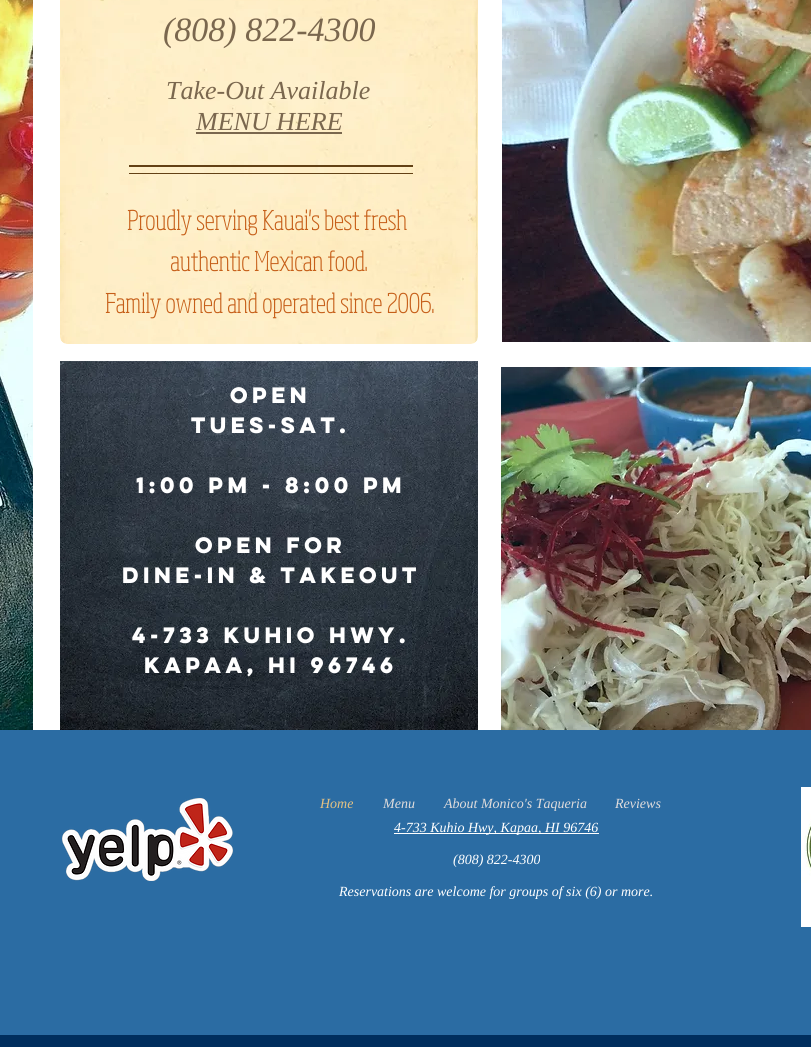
#include <cairo/cairo.h>
#include <math.h>
#include <stddef.h>


static void draw_image(cairo_t *cr, const char *path, double x, double y, double w, double h) {
  cairo_surface_t *image = cairo_image_surface_create_from_png(path);
  cairo_save(cr);
  cairo_set_source_surface(cr, image, x, y);
  cairo_rectangle(cr, x, y, w, h);
  cairo_fill(cr);
  cairo_restore(cr);
  cairo_surface_destroy(image);
}

static void draw(cairo_t *cr) {
  cairo_set_source_rgb(cr, 1, 1, 1);
  cairo_paint(cr);
  draw_image(cr, "images/1.png", 0, 0, 33, 730);
  draw_image(cr, "images/2.png", 60, 0, 418, 344);
  draw_image(cr, "images/3.png", 502, 0, 309, 342);
  cairo_set_source_rgb(cr, 122 / 255.0, 103 / 255.0, 78 / 255.0);
  cairo_rectangle(cr, 196, 132, 146, 2);
  cairo_fill(cr);
  cairo_set_source_rgb(cr, 99 / 255.0, 65 / 255.0, 21 / 255.0);
  cairo_rectangle(cr, 129, 165, 284, 2);
  cairo_fill(cr);
  cairo_rectangle(cr, 129, 173, 284, 1);
  cairo_fill(cr);
  draw_image(cr, "images/4.png", 60, 361, 418, 369);
  draw_image(cr, "images/5.png", 501, 367, 310, 363);
  cairo_set_source_rgb(cr, 43 / 255.0, 108 / 255.0, 163 / 255.0);
  cairo_rectangle(cr, 0, 730, 811, 305);
  cairo_fill(cr);
  cairo_set_source_rgb(cr, 0, 46 / 255.0, 93 / 255.0);
  cairo_rectangle(cr, 0, 1035, 811, 12);
  cairo_fill(cr);
  draw_image(cr, "images/6.png", 62, 798, 171, 83);
  draw_image(cr, "images/7.png", 801, 787, 10, 140);
  cairo_set_source_rgb(cr, 1, 1, 1);
  cairo_rectangle(cr, 394, 833, 205, 1);
  cairo_fill(cr);
  cairo_select_font_face(cr, "Liberation Serif", CAIRO_FONT_SLANT_ITALIC, CAIRO_FONT_WEIGHT_NORMAL);
  cairo_set_font_size(cr, 34);
  cairo_set_source_rgb(cr, 122 / 255.0, 103 / 255.0, 78 / 255.0);
  cairo_move_to(cr, 163, 41);
  cairo_show_text(cr, "(808) 822-4300");
  cairo_set_font_size(cr, 26);
  cairo_move_to(cr, 166, 99);
  cairo_show_text(cr, "Take-Out Available");
  cairo_move_to(cr, 196, 130);
  cairo_show_text(cr, "MENU HERE");
  cairo_select_font_face(cr, "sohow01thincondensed", CAIRO_FONT_SLANT_NORMAL, CAIRO_FONT_WEIGHT_BOLD);
  cairo_set_source_rgb(cr, 198 / 255.0, 95 / 255.0, 25 / 255.0);
  cairo_move_to(cr, 127, 230);
  cairo_show_text(cr, "Proudly serving Kauai's best fresh");
  cairo_move_to(cr, 170, 271);
  cairo_show_text(cr, "authentic Mexican food.");
  cairo_move_to(cr, 105, 313);
  cairo_show_text(cr, "Family owned and operated since 2006.");
  cairo_select_font_face(cr, "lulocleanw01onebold", CAIRO_FONT_SLANT_NORMAL, CAIRO_FONT_WEIGHT_BOLD);
  cairo_set_font_size(cr, 20);
  cairo_set_source_rgb(cr, 1, 1, 1);
  cairo_move_to(cr, 230, 403);
  cairo_show_text(cr, "Open");
  cairo_move_to(cr, 191, 433);
  cairo_show_text(cr, "Tues-sat.");
  cairo_move_to(cr, 136, 493);
  cairo_show_text(cr, "1:00 PM - 8:00 pm");
  cairo_move_to(cr, 195, 553);
  cairo_show_text(cr, "Open for");
  cairo_move_to(cr, 122, 583);
  cairo_show_text(cr, "Dine-IN & Takeout");
  cairo_move_to(cr, 132, 643);
  cairo_show_text(cr, "4-733 Kuhio Hwy.");
  cairo_move_to(cr, 144, 673);
  cairo_show_text(cr, "Kapaa, HI 96746");
  cairo_select_font_face(cr, "Liberation Serif", CAIRO_FONT_SLANT_ITALIC, CAIRO_FONT_WEIGHT_NORMAL);
  cairo_set_font_size(cr, 14);
  cairo_set_source_rgb(cr, 229 / 255.0, 194 / 255.0, 130 / 255.0);
  cairo_move_to(cr, 320, 808);
  cairo_show_text(cr, "Home");
  cairo_set_source_rgb(cr, 223 / 255.0, 220 / 255.0, 220 / 255.0);
  cairo_move_to(cr, 383, 808);
  cairo_show_text(cr, "Menu");
  cairo_move_to(cr, 444, 808);
  cairo_show_text(cr, "About Monico's Taqueria");
  cairo_move_to(cr, 615, 808);
  cairo_show_text(cr, "Reviews");
  cairo_set_source_rgb(cr, 1, 1, 1);
  cairo_move_to(cr, 394, 832);
  cairo_show_text(cr, "4-733 Kuhio Hwy, Kapaa, HI 96746");
  cairo_move_to(cr, 453, 864);
  cairo_show_text(cr, "(808) 822-4300");
  cairo_move_to(cr, 339, 896);
  cairo_show_text(cr, "Reservations are welcome for groups of six (6) or more.");
}

int main(void) {
  cairo_surface_t *surface = cairo_image_surface_create(CAIRO_FORMAT_RGB24, 811, 1049);
  cairo_t *cr = cairo_create(surface);
  cairo_font_options_t *options = cairo_font_options_create();
  cairo_font_options_set_hint_metrics(options, CAIRO_HINT_METRICS_OFF);
  cairo_font_options_set_hint_style(options, CAIRO_HINT_STYLE_NONE);
  cairo_set_font_options(cr, options);
  cairo_set_miter_limit(cr, 4);
  draw(cr);
  cairo_surface_write_to_png(surface, "out.png");
  cairo_font_options_destroy(options);
  cairo_destroy(cr);
  cairo_surface_destroy(surface);
  return 0;
}
